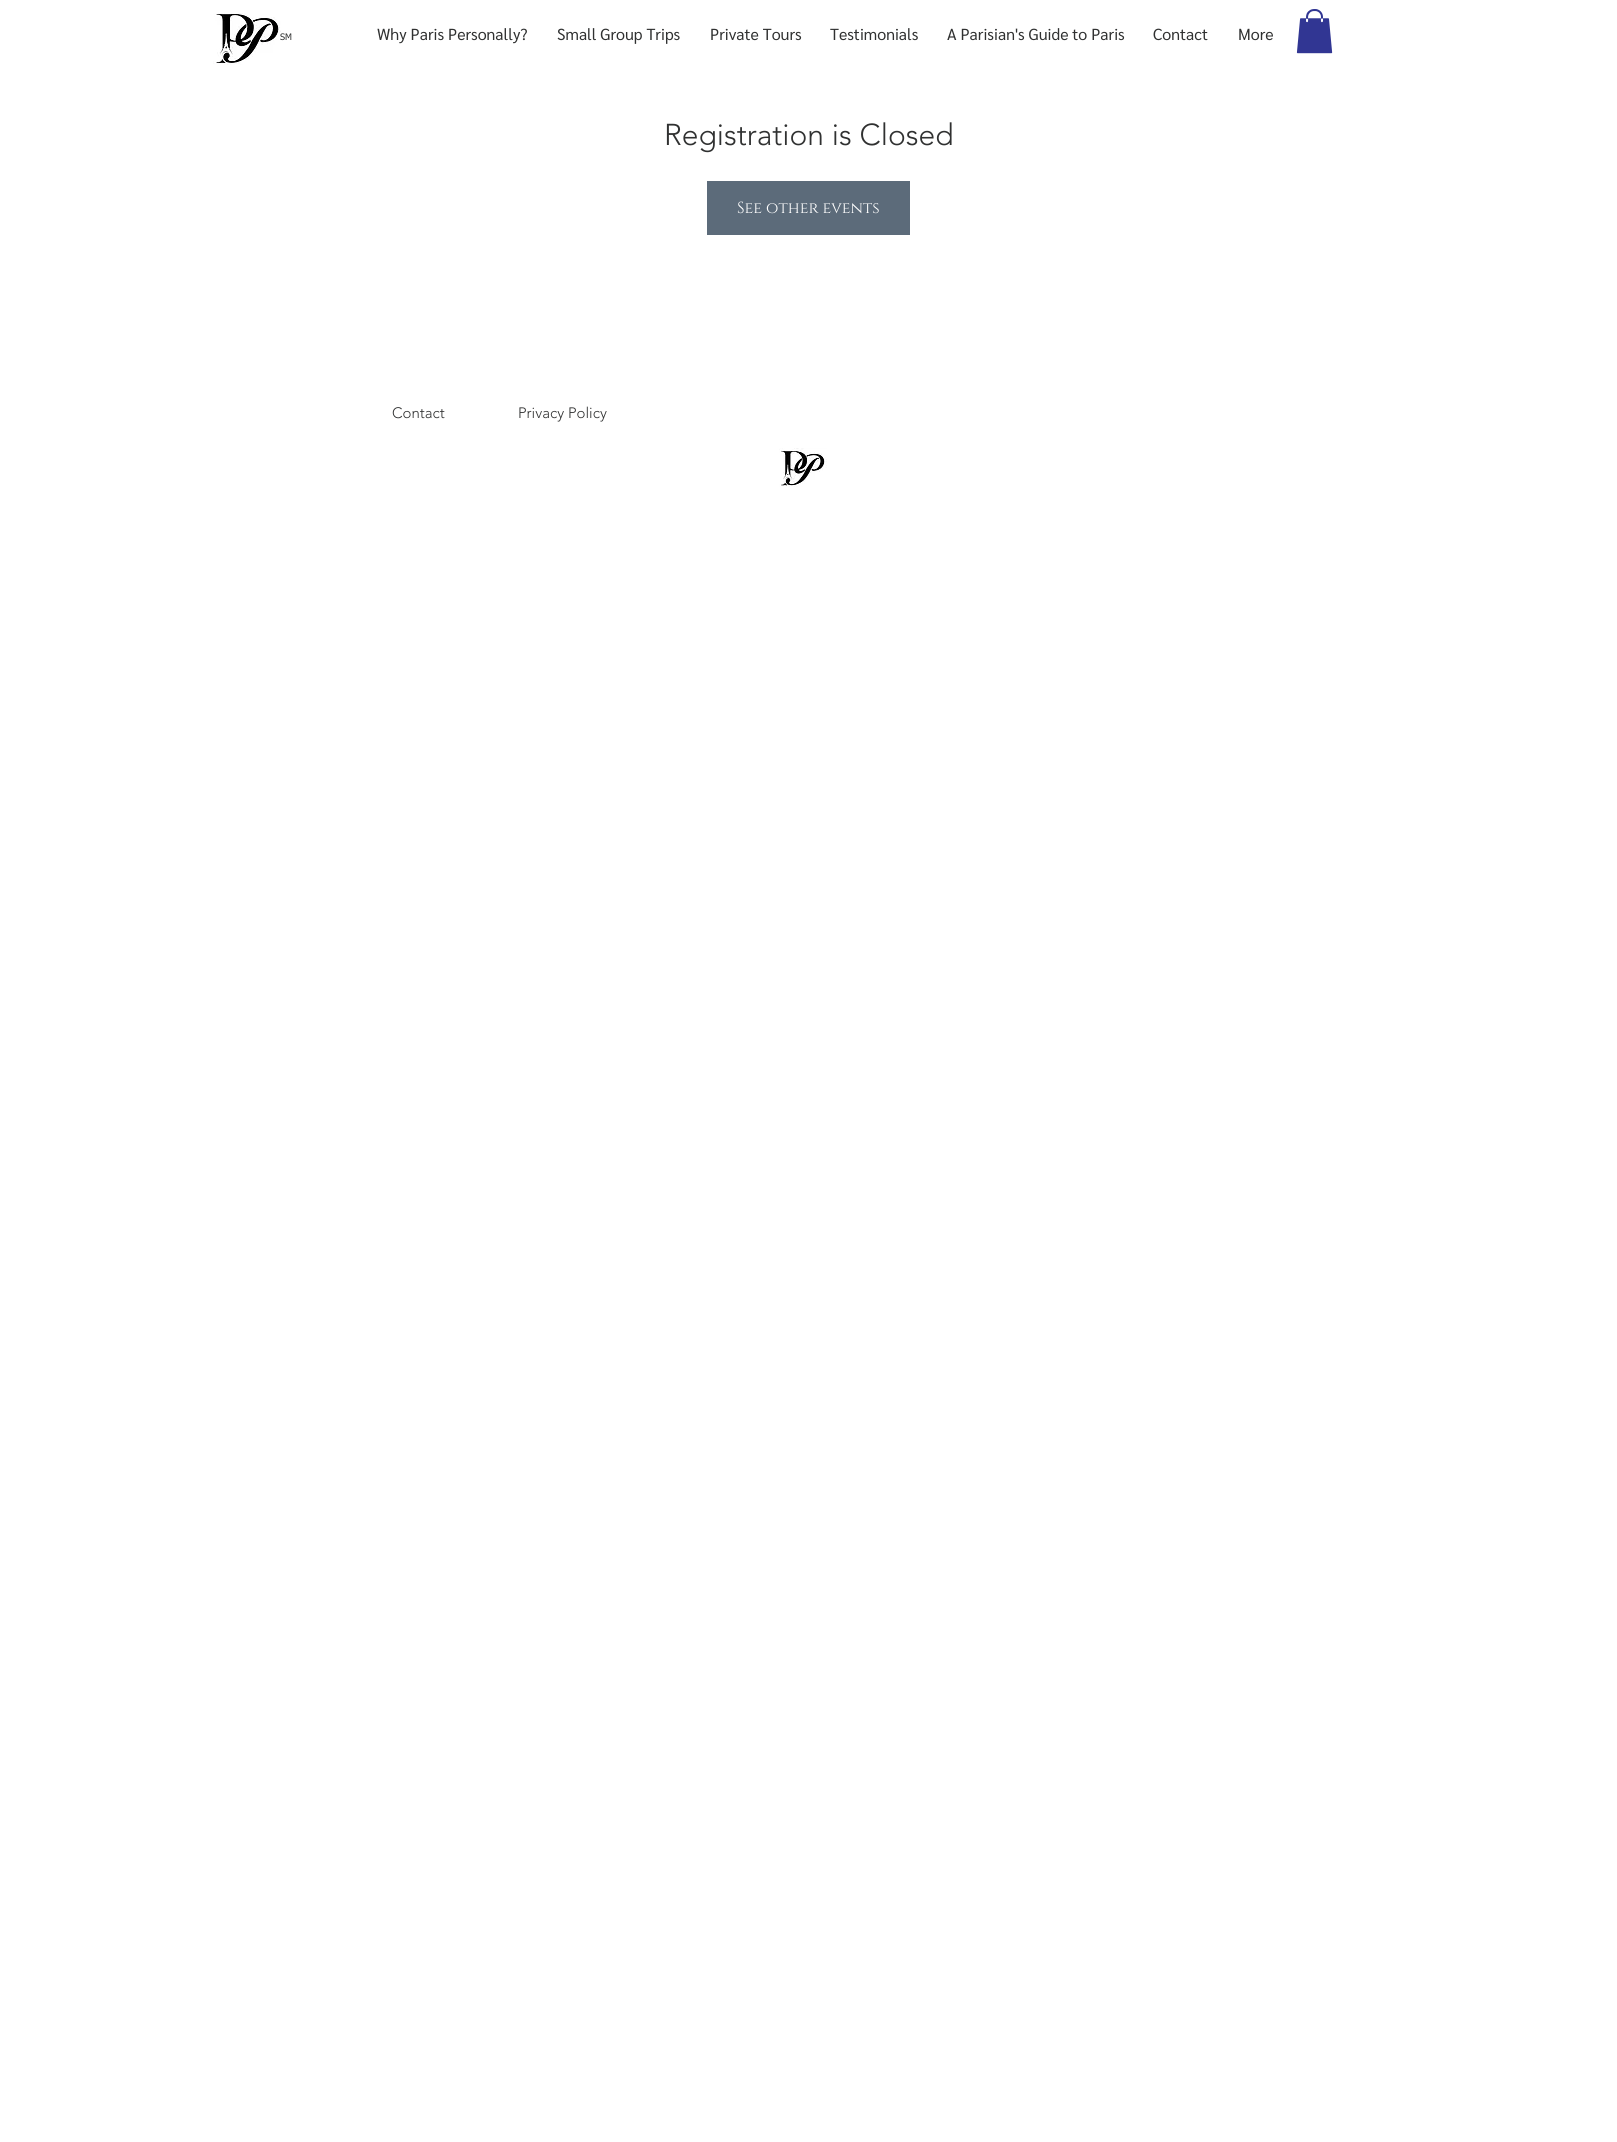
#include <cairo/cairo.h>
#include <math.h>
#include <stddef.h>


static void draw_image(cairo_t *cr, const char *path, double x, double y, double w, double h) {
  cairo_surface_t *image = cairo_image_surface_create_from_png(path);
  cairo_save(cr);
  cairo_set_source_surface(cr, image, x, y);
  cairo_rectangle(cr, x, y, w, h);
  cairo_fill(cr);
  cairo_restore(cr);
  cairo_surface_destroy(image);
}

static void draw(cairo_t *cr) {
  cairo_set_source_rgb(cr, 1, 1, 1);
  cairo_paint(cr);
  draw_image(cr, "images/1.png", 213, 13, 68, 52);
  draw_image(cr, "images/2.png", 1296, 9, 37, 45);
  cairo_set_source_rgb(cr, 92 / 255.0, 107 / 255.0, 122 / 255.0);
  cairo_rectangle(cr, 707, 181, 203, 54);
  cairo_fill(cr);
  draw_image(cr, "images/3.png", 779, 448, 48, 39);
  cairo_select_font_face(cr, "tahoma", CAIRO_FONT_SLANT_NORMAL, CAIRO_FONT_WEIGHT_NORMAL);
  cairo_set_font_size(cr, 9);
  cairo_set_source_rgb(cr, 48 / 255.0, 49 / 255.0, 49 / 255.0);
  cairo_move_to(cr, 280, 40);
  cairo_show_text(cr, "SM");
  cairo_select_font_face(cr, "Sarabun", CAIRO_FONT_SLANT_NORMAL, CAIRO_FONT_WEIGHT_NORMAL);
  cairo_set_font_size(cr, 16);
  cairo_move_to(cr, 377, 40);
  cairo_show_text(cr, "Why Paris Personally?");
  cairo_move_to(cr, 557, 40);
  cairo_show_text(cr, "Small Group Trips");
  cairo_move_to(cr, 710, 40);
  cairo_show_text(cr, "Private Tours");
  cairo_move_to(cr, 830, 40);
  cairo_show_text(cr, "Testimonials");
  cairo_move_to(cr, 947, 40);
  cairo_show_text(cr, "A Parisian's Guide to Paris");
  cairo_move_to(cr, 1153, 40);
  cairo_show_text(cr, "Contact");
  cairo_move_to(cr, 1238, 40);
  cairo_show_text(cr, "More");
  cairo_select_font_face(cr, "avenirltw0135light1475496 Light", CAIRO_FONT_SLANT_NORMAL, CAIRO_FONT_WEIGHT_NORMAL);
  cairo_set_font_size(cr, 30);
  cairo_move_to(cr, 664, 145);
  cairo_show_text(cr, "Registration is Closed");
  cairo_select_font_face(cr, "Cinzel", CAIRO_FONT_SLANT_NORMAL, CAIRO_FONT_WEIGHT_NORMAL);
  cairo_set_font_size(cr, 16);
  cairo_set_source_rgb(cr, 1, 1, 1);
  cairo_move_to(cr, 737, 213);
  cairo_show_text(cr, "See other events");
  cairo_select_font_face(cr, "avenirltw0135light1475496 Light", CAIRO_FONT_SLANT_NORMAL, CAIRO_FONT_WEIGHT_NORMAL);
  cairo_set_font_size(cr, 15);
  cairo_set_source_rgb(cr, 48 / 255.0, 49 / 255.0, 49 / 255.0);
  cairo_move_to(cr, 392, 418);
  cairo_show_text(cr, "Contact");
  cairo_move_to(cr, 518, 418);
  cairo_show_text(cr, "Privacy Policy");
}

int main(void) {
  cairo_surface_t *surface = cairo_image_surface_create(CAIRO_FORMAT_RGB24, 1617, 2142);
  cairo_t *cr = cairo_create(surface);
  cairo_font_options_t *options = cairo_font_options_create();
  cairo_font_options_set_hint_metrics(options, CAIRO_HINT_METRICS_OFF);
  cairo_font_options_set_hint_style(options, CAIRO_HINT_STYLE_NONE);
  cairo_set_font_options(cr, options);
  cairo_set_miter_limit(cr, 4);
  draw(cr);
  cairo_surface_write_to_png(surface, "out.png");
  cairo_font_options_destroy(options);
  cairo_destroy(cr);
  cairo_surface_destroy(surface);
  return 0;
}
